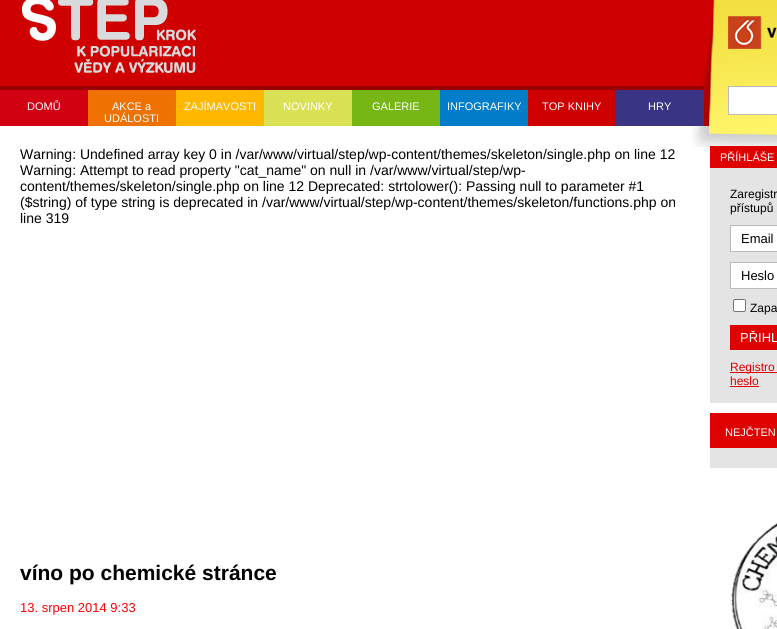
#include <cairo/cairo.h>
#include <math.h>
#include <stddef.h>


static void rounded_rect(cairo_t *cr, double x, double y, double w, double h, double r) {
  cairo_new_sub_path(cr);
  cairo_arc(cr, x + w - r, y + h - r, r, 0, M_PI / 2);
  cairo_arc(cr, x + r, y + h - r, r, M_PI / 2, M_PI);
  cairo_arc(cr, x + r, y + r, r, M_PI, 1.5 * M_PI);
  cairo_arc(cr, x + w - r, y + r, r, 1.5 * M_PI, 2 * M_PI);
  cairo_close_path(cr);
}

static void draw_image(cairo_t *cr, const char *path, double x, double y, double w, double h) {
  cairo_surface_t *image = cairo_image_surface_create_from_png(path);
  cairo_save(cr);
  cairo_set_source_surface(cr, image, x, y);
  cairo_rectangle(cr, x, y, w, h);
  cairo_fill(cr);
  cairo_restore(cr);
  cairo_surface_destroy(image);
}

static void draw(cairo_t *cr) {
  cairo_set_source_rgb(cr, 1, 1, 1);
  cairo_paint(cr);
  cairo_set_source_rgb(cr, 207 / 255.0, 0, 0);
  cairo_rectangle(cr, 0, 0, 715, 126);
  cairo_fill(cr);
  draw_image(cr, "images/1.png", 22, 0, 174, 73);
  draw_image(cr, "images/2.png", 692, 0, 85, 147);
  cairo_set_source_rgb(cr, 1, 1, 1);
  cairo_rectangle(cr, 728.5, 86.5, 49, 28);
  cairo_fill_preserve(cr);
  cairo_set_source_rgb(cr, 186 / 255.0, 186 / 255.0, 186 / 255.0);
  cairo_set_line_width(cr, 1);
  cairo_stroke(cr);
  draw_image(cr, "images/3.png", 728, 16, 49, 33);
  cairo_set_source_rgb(cr, 210 / 255.0, 1 / 255.0, 18 / 255.0);
  cairo_rectangle(cr, 0, 90, 88, 36);
  cairo_fill(cr);
  cairo_set_source_rgb(cr, 153 / 255.0, 0, 0);
  cairo_rectangle(cr, 0, 86, 704, 4);
  cairo_fill(cr);
  cairo_set_source_rgb(cr, 238 / 255.0, 113 / 255.0, 1 / 255.0);
  cairo_rectangle(cr, 88, 90, 88, 36);
  cairo_fill(cr);
  cairo_set_source_rgb(cr, 1, 183 / 255.0, 0);
  cairo_rectangle(cr, 176, 90, 88, 36);
  cairo_fill(cr);
  cairo_set_source_rgb(cr, 219 / 255.0, 225 / 255.0, 84 / 255.0);
  cairo_rectangle(cr, 264, 90, 88, 36);
  cairo_fill(cr);
  cairo_set_source_rgb(cr, 118 / 255.0, 183 / 255.0, 21 / 255.0);
  cairo_rectangle(cr, 352, 90, 88, 36);
  cairo_fill(cr);
  cairo_set_source_rgb(cr, 1 / 255.0, 125 / 255.0, 201 / 255.0);
  cairo_rectangle(cr, 440, 90, 88, 36);
  cairo_fill(cr);
  cairo_set_source_rgb(cr, 57 / 255.0, 52 / 255.0, 132 / 255.0);
  cairo_rectangle(cr, 616, 90, 88, 36);
  cairo_fill(cr);
  cairo_set_source_rgb(cr, 228 / 255.0, 228 / 255.0, 228 / 255.0);
  cairo_rectangle(cr, 710, 168, 67, 235);
  cairo_fill(cr);
  cairo_set_source_rgb(cr, 223 / 255.0, 0, 0);
  cairo_rectangle(cr, 710, 146, 67, 22);
  cairo_fill(cr);
  cairo_set_source_rgb(cr, 1, 1, 1);
  cairo_rectangle(cr, 730.5, 225.5, 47, 26);
  cairo_fill_preserve(cr);
  cairo_set_source_rgb(cr, 186 / 255.0, 186 / 255.0, 186 / 255.0);
  cairo_stroke(cr);
  cairo_set_source_rgb(cr, 1, 1, 1);
  cairo_rectangle(cr, 730.5, 262.5, 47, 26);
  cairo_fill_preserve(cr);
  cairo_set_source_rgb(cr, 186 / 255.0, 186 / 255.0, 186 / 255.0);
  cairo_stroke(cr);
  cairo_set_source_rgb(cr, 1, 1, 1);
  rounded_rect(cr, 733.5, 299.5, 12, 12, 1.5);
  cairo_fill_preserve(cr);
  cairo_set_source_rgb(cr, 118 / 255.0, 118 / 255.0, 118 / 255.0);
  cairo_stroke(cr);
  cairo_set_source_rgb(cr, 223 / 255.0, 0, 0);
  cairo_rectangle(cr, 730, 325, 47, 25);
  cairo_fill(cr);
  cairo_rectangle(cr, 730, 372, 47, 1);
  cairo_fill(cr);
  cairo_rectangle(cr, 730, 386, 29, 1);
  cairo_fill(cr);
  cairo_set_source_rgb(cr, 228 / 255.0, 228 / 255.0, 228 / 255.0);
  cairo_rectangle(cr, 710, 448, 67, 20);
  cairo_fill(cr);
  cairo_set_source_rgb(cr, 223 / 255.0, 0, 0);
  cairo_rectangle(cr, 710, 413, 67, 35);
  cairo_fill(cr);
  draw_image(cr, "images/4.png", 730, 522, 47, 107);
  cairo_select_font_face(cr, "Liberation Sans", CAIRO_FONT_SLANT_NORMAL, CAIRO_FONT_WEIGHT_NORMAL);
  cairo_set_font_size(cr, 11);
  cairo_set_source_rgb(cr, 1, 1, 1);
  cairo_move_to(cr, 27, 110);
  cairo_show_text(cr, "DOMŮ");
  cairo_move_to(cr, 112, 110);
  cairo_show_text(cr, "AKCE a");
  cairo_move_to(cr, 104, 122);
  cairo_show_text(cr, "UDÁLOSTI");
  cairo_move_to(cr, 184, 110);
  cairo_show_text(cr, "ZAJÍMAVOSTI");
  cairo_move_to(cr, 283, 110);
  cairo_show_text(cr, "NOVINKY");
  cairo_move_to(cr, 372, 110);
  cairo_show_text(cr, "GALERIE");
  cairo_move_to(cr, 447, 110);
  cairo_show_text(cr, "INFOGRAFIKY");
  cairo_move_to(cr, 542, 110);
  cairo_show_text(cr, "TOP KNIHY");
  cairo_move_to(cr, 648, 110);
  cairo_show_text(cr, "HRY");
  cairo_set_font_size(cr, 14);
  cairo_set_source_rgb(cr, 0, 0, 0);
  cairo_move_to(cr, 20, 159);
  cairo_show_text(cr, "Warning: Undefined array key 0 in /var/www/virtual/step/wp-content/themes/skeleton/single.php on line 12");
  cairo_move_to(cr, 20, 175);
  cairo_show_text(cr, "Warning: Attempt to read property \"cat_name\" on null in /var/www/virtual/step/wp-");
  cairo_move_to(cr, 20, 191);
  cairo_show_text(cr, "content/themes/skeleton/single.php on line 12 Deprecated: strtolower(): Passing null to parameter #1");
  cairo_move_to(cr, 20, 207);
  cairo_show_text(cr, "($string) of type string is deprecated in /var/www/virtual/step/wp-content/themes/skeleton/functions.php on");
  cairo_move_to(cr, 20, 223);
  cairo_show_text(cr, "line 319");
  cairo_select_font_face(cr, "Liberation Sans", CAIRO_FONT_SLANT_NORMAL, CAIRO_FONT_WEIGHT_BOLD);
  cairo_set_font_size(cr, 21);
  cairo_move_to(cr, 20, 580);
  cairo_show_text(cr, "víno po chemické stránce");
  cairo_select_font_face(cr, "Liberation Sans", CAIRO_FONT_SLANT_NORMAL, CAIRO_FONT_WEIGHT_NORMAL);
  cairo_set_font_size(cr, 13);
  cairo_set_source_rgb(cr, 254 / 255.0, 0, 0);
  cairo_move_to(cr, 20, 612);
  cairo_show_text(cr, "13. srpen 2014 9:33");
  cairo_set_font_size(cr, 11);
  cairo_set_source_rgb(cr, 1, 1, 1);
  cairo_move_to(cr, 720, 161);
  cairo_show_text(cr, "PŘÍHLÁŠE");
  cairo_set_font_size(cr, 12);
  cairo_set_source_rgb(cr, 0, 0, 0);
  cairo_move_to(cr, 730, 198);
  cairo_show_text(cr, "Zaregistr");
  cairo_move_to(cr, 730, 212);
  cairo_show_text(cr, "přístupů");
  cairo_set_font_size(cr, 13);
  cairo_move_to(cr, 741, 243);
  cairo_show_text(cr, "Email");
  cairo_move_to(cr, 741, 280);
  cairo_show_text(cr, "Heslo");
  cairo_set_font_size(cr, 12);
  cairo_move_to(cr, 750, 312);
  cairo_show_text(cr, "Zapa");
  cairo_set_font_size(cr, 13);
  cairo_set_source_rgb(cr, 1, 1, 1);
  cairo_move_to(cr, 740, 342);
  cairo_show_text(cr, "PŘIHL");
  cairo_set_font_size(cr, 12);
  cairo_set_source_rgb(cr, 223 / 255.0, 0, 0);
  cairo_move_to(cr, 730, 371);
  cairo_show_text(cr, "Registro");
  cairo_move_to(cr, 730, 385);
  cairo_show_text(cr, "heslo");
  cairo_set_font_size(cr, 11);
  cairo_set_source_rgb(cr, 1, 1, 1);
  cairo_move_to(cr, 725, 436);
  cairo_show_text(cr, "NEJČTEN");
}

int main(void) {
  cairo_surface_t *surface = cairo_image_surface_create(CAIRO_FORMAT_RGB24, 777, 629);
  cairo_t *cr = cairo_create(surface);
  cairo_font_options_t *options = cairo_font_options_create();
  cairo_font_options_set_hint_metrics(options, CAIRO_HINT_METRICS_OFF);
  cairo_font_options_set_hint_style(options, CAIRO_HINT_STYLE_NONE);
  cairo_set_font_options(cr, options);
  cairo_set_miter_limit(cr, 4);
  draw(cr);
  cairo_surface_write_to_png(surface, "out.png");
  cairo_font_options_destroy(options);
  cairo_destroy(cr);
  cairo_surface_destroy(surface);
  return 0;
}
